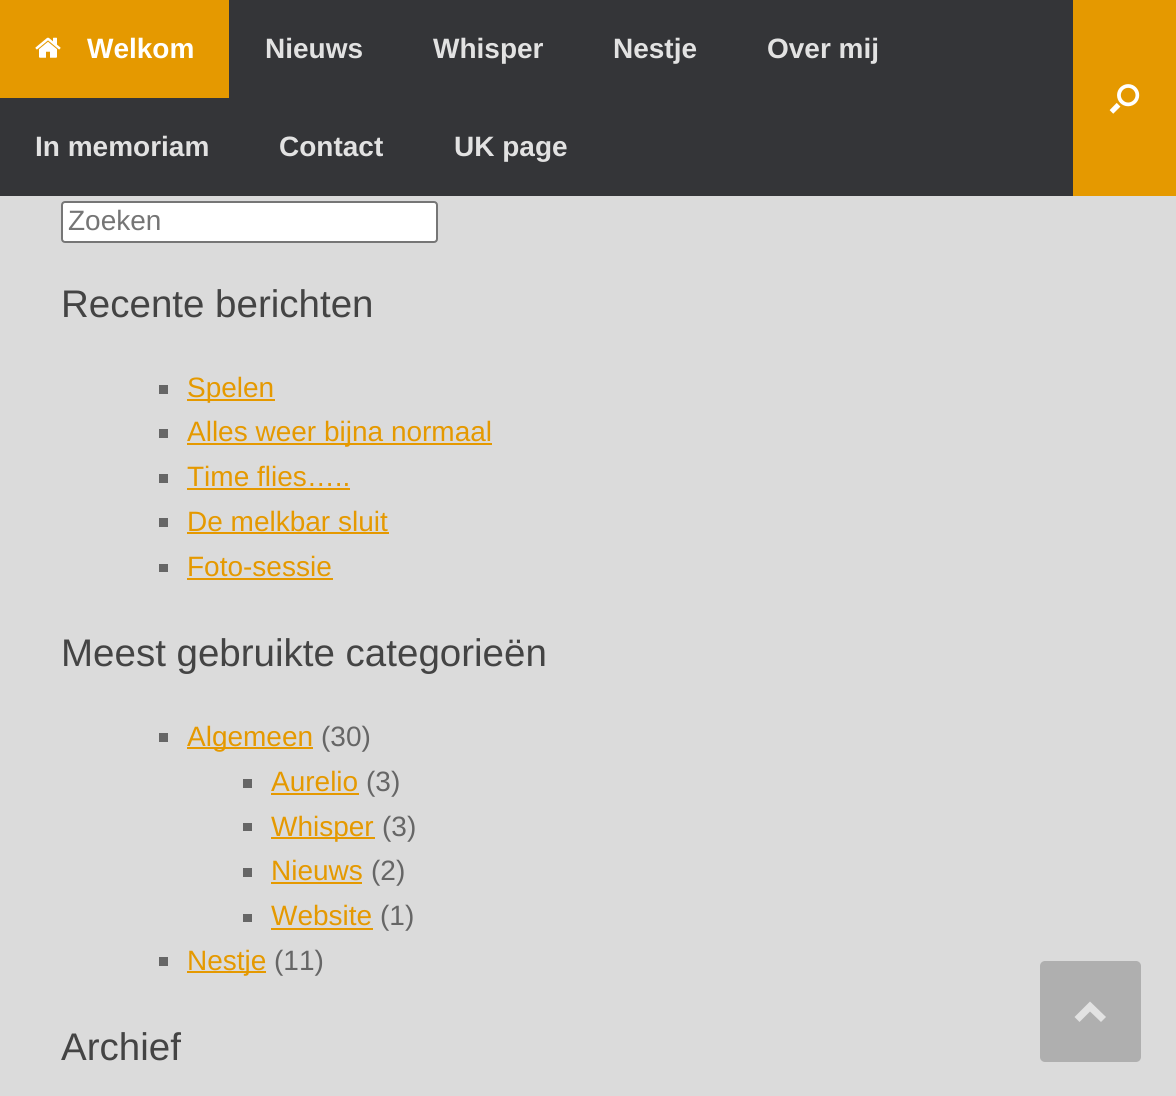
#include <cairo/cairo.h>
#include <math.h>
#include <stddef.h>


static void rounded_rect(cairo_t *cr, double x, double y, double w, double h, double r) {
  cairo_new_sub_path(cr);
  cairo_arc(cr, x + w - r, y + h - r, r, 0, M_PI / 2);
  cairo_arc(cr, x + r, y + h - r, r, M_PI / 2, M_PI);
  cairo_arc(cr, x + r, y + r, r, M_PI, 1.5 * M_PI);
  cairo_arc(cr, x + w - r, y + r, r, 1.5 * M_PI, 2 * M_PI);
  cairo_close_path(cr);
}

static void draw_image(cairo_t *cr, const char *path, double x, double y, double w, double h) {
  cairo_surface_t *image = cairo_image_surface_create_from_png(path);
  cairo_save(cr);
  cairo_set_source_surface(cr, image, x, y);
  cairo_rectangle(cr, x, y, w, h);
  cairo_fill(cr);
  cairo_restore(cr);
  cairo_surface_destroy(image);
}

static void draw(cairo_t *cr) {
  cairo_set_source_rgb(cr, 219 / 255.0, 219 / 255.0, 219 / 255.0);
  cairo_paint(cr);
  cairo_set_source_rgb(cr, 52 / 255.0, 53 / 255.0, 56 / 255.0);
  cairo_rectangle(cr, 0, 0, 1073, 196);
  cairo_fill(cr);
  cairo_set_source_rgb(cr, 229 / 255.0, 153 / 255.0, 0);
  cairo_rectangle(cr, 0, 0, 229, 98);
  cairo_fill(cr);
  draw_image(cr, "images/1.png", 35, 37, 26, 21);
  cairo_rectangle(cr, 1073, 0, 103, 196);
  cairo_fill(cr);
  draw_image(cr, "images/2.png", 1109, 84, 31, 30);
  cairo_set_source_rgb(cr, 1, 1, 1);
  rounded_rect(cr, 62, 202, 375, 40, 3);
  cairo_fill_preserve(cr);
  cairo_set_source_rgb(cr, 118 / 255.0, 118 / 255.0, 118 / 255.0);
  cairo_stroke(cr);
  cairo_set_source_rgb(cr, 102 / 255.0, 102 / 255.0, 102 / 255.0);
  cairo_rectangle(cr, 159, 385, 9, 9);
  cairo_fill(cr);
  cairo_set_source_rgb(cr, 229 / 255.0, 153 / 255.0, 0);
  cairo_rectangle(cr, 187, 399, 88, 2);
  cairo_fill(cr);
  cairo_set_source_rgb(cr, 102 / 255.0, 102 / 255.0, 102 / 255.0);
  cairo_rectangle(cr, 159, 429, 9, 9);
  cairo_fill(cr);
  cairo_set_source_rgb(cr, 229 / 255.0, 153 / 255.0, 0);
  cairo_rectangle(cr, 187, 443, 305, 2);
  cairo_fill(cr);
  cairo_set_source_rgb(cr, 102 / 255.0, 102 / 255.0, 102 / 255.0);
  cairo_rectangle(cr, 159, 474, 9, 9);
  cairo_fill(cr);
  cairo_set_source_rgb(cr, 229 / 255.0, 153 / 255.0, 0);
  cairo_rectangle(cr, 187, 488, 163, 2);
  cairo_fill(cr);
  cairo_set_source_rgb(cr, 102 / 255.0, 102 / 255.0, 102 / 255.0);
  cairo_rectangle(cr, 159, 518, 9, 9);
  cairo_fill(cr);
  cairo_set_source_rgb(cr, 229 / 255.0, 153 / 255.0, 0);
  cairo_rectangle(cr, 187, 532, 202, 2);
  cairo_fill(cr);
  cairo_set_source_rgb(cr, 102 / 255.0, 102 / 255.0, 102 / 255.0);
  cairo_rectangle(cr, 159, 564, 9, 8);
  cairo_fill(cr);
  cairo_set_source_rgb(cr, 229 / 255.0, 153 / 255.0, 0);
  cairo_rectangle(cr, 187, 578, 146, 2);
  cairo_fill(cr);
  cairo_set_source_rgb(cr, 102 / 255.0, 102 / 255.0, 102 / 255.0);
  cairo_rectangle(cr, 159, 733, 9, 9);
  cairo_fill(cr);
  cairo_set_source_rgb(cr, 229 / 255.0, 153 / 255.0, 0);
  cairo_rectangle(cr, 187, 747, 126, 2);
  cairo_fill(cr);
  cairo_set_source_rgb(cr, 102 / 255.0, 102 / 255.0, 102 / 255.0);
  cairo_rectangle(cr, 243, 779, 9, 9);
  cairo_fill(cr);
  cairo_set_source_rgb(cr, 229 / 255.0, 153 / 255.0, 0);
  cairo_rectangle(cr, 271, 793, 88, 2);
  cairo_fill(cr);
  cairo_set_source_rgb(cr, 102 / 255.0, 102 / 255.0, 102 / 255.0);
  cairo_rectangle(cr, 243, 823, 9, 8);
  cairo_fill(cr);
  cairo_set_source_rgb(cr, 229 / 255.0, 153 / 255.0, 0);
  cairo_rectangle(cr, 271, 837, 104, 2);
  cairo_fill(cr);
  cairo_set_source_rgb(cr, 102 / 255.0, 102 / 255.0, 102 / 255.0);
  cairo_rectangle(cr, 243, 868, 9, 9);
  cairo_fill(cr);
  cairo_set_source_rgb(cr, 229 / 255.0, 153 / 255.0, 0);
  cairo_rectangle(cr, 271, 882, 91, 2);
  cairo_fill(cr);
  cairo_set_source_rgb(cr, 102 / 255.0, 102 / 255.0, 102 / 255.0);
  cairo_rectangle(cr, 243, 914, 9, 8);
  cairo_fill(cr);
  cairo_set_source_rgb(cr, 229 / 255.0, 153 / 255.0, 0);
  cairo_rectangle(cr, 271, 928, 102, 2);
  cairo_fill(cr);
  cairo_set_source_rgb(cr, 102 / 255.0, 102 / 255.0, 102 / 255.0);
  cairo_rectangle(cr, 159, 957, 9, 9);
  cairo_fill(cr);
  cairo_set_source_rgb(cr, 229 / 255.0, 153 / 255.0, 0);
  cairo_rectangle(cr, 187, 971, 79, 2);
  cairo_fill(cr);
  cairo_set_source_rgb(cr, 175 / 255.0, 175 / 255.0, 175 / 255.0);
  rounded_rect(cr, 1040, 961, 101, 101, 5);
  cairo_fill(cr);
  cairo_set_source_rgb(cr, 226 / 255.0, 226 / 255.0, 226 / 255.0);
  cairo_new_path(cr);
  cairo_move_to(cr, 1106, 1017);
  cairo_line_to(cr, 1090, 1001.5);
  cairo_line_to(cr, 1074.5, 1017);
  cairo_line_to(cr, 1079.5, 1022);
  cairo_line_to(cr, 1090, 1011.5);
  cairo_line_to(cr, 1101, 1022);
  cairo_close_path(cr);
  cairo_fill(cr);
  cairo_select_font_face(cr, "Liberation Sans", CAIRO_FONT_SLANT_NORMAL, CAIRO_FONT_WEIGHT_BOLD);
  cairo_set_font_size(cr, 28);
  cairo_set_source_rgb(cr, 1, 1, 1);
  cairo_move_to(cr, 87, 58);
  cairo_show_text(cr, "Welkom");
  cairo_set_source_rgb(cr, 226 / 255.0, 226 / 255.0, 226 / 255.0);
  cairo_move_to(cr, 265, 58);
  cairo_show_text(cr, "Nieuws");
  cairo_move_to(cr, 433, 58);
  cairo_show_text(cr, "Whisper");
  cairo_move_to(cr, 613, 58);
  cairo_show_text(cr, "Nestje");
  cairo_move_to(cr, 767, 58);
  cairo_show_text(cr, "Over mij");
  cairo_move_to(cr, 35, 156);
  cairo_show_text(cr, "In memoriam");
  cairo_move_to(cr, 279, 156);
  cairo_show_text(cr, "Contact");
  cairo_move_to(cr, 454, 156);
  cairo_show_text(cr, "UK page");
  cairo_select_font_face(cr, "Liberation Sans", CAIRO_FONT_SLANT_NORMAL, CAIRO_FONT_WEIGHT_NORMAL);
  cairo_set_source_rgb(cr, 117 / 255.0, 117 / 255.0, 117 / 255.0);
  cairo_move_to(cr, 68, 230);
  cairo_show_text(cr, "Zoeken");
  cairo_set_font_size(cr, 38.5);
  cairo_set_source_rgb(cr, 68 / 255.0, 68 / 255.0, 68 / 255.0);
  cairo_move_to(cr, 61, 317);
  cairo_show_text(cr, "Recente berichten");
  cairo_set_font_size(cr, 28);
  cairo_set_source_rgb(cr, 229 / 255.0, 153 / 255.0, 0);
  cairo_move_to(cr, 187, 397);
  cairo_show_text(cr, "Spelen");
  cairo_move_to(cr, 187, 441);
  cairo_show_text(cr, "Alles weer bijna normaal");
  cairo_move_to(cr, 187, 486);
  cairo_show_text(cr, "Time flies…..");
  cairo_move_to(cr, 187, 531);
  cairo_show_text(cr, "De melkbar sluit");
  cairo_move_to(cr, 187, 576);
  cairo_show_text(cr, "Foto-sessie");
  cairo_set_font_size(cr, 38.5);
  cairo_set_source_rgb(cr, 68 / 255.0, 68 / 255.0, 68 / 255.0);
  cairo_move_to(cr, 61, 666);
  cairo_show_text(cr, "Meest gebruikte categorieën");
  cairo_set_font_size(cr, 28);
  cairo_set_source_rgb(cr, 229 / 255.0, 153 / 255.0, 0);
  cairo_move_to(cr, 187, 746);
  cairo_show_text(cr, "Algemeen");
  cairo_set_source_rgb(cr, 102 / 255.0, 102 / 255.0, 102 / 255.0);
  cairo_move_to(cr, 321, 746);
  cairo_show_text(cr, "(30)");
  cairo_set_source_rgb(cr, 229 / 255.0, 153 / 255.0, 0);
  cairo_move_to(cr, 271, 791);
  cairo_show_text(cr, "Aurelio");
  cairo_set_source_rgb(cr, 102 / 255.0, 102 / 255.0, 102 / 255.0);
  cairo_move_to(cr, 366, 791);
  cairo_show_text(cr, "(3)");
  cairo_set_source_rgb(cr, 229 / 255.0, 153 / 255.0, 0);
  cairo_move_to(cr, 271, 836);
  cairo_show_text(cr, "Whisper");
  cairo_set_source_rgb(cr, 102 / 255.0, 102 / 255.0, 102 / 255.0);
  cairo_move_to(cr, 382, 836);
  cairo_show_text(cr, "(3)");
  cairo_set_source_rgb(cr, 229 / 255.0, 153 / 255.0, 0);
  cairo_move_to(cr, 271, 880);
  cairo_show_text(cr, "Nieuws");
  cairo_set_source_rgb(cr, 102 / 255.0, 102 / 255.0, 102 / 255.0);
  cairo_move_to(cr, 371, 880);
  cairo_show_text(cr, "(2)");
  cairo_set_source_rgb(cr, 229 / 255.0, 153 / 255.0, 0);
  cairo_move_to(cr, 271, 925);
  cairo_show_text(cr, "Website");
  cairo_set_source_rgb(cr, 102 / 255.0, 102 / 255.0, 102 / 255.0);
  cairo_move_to(cr, 380, 925);
  cairo_show_text(cr, "(1)");
  cairo_set_source_rgb(cr, 229 / 255.0, 153 / 255.0, 0);
  cairo_move_to(cr, 187, 970);
  cairo_show_text(cr, "Nestje");
  cairo_set_source_rgb(cr, 102 / 255.0, 102 / 255.0, 102 / 255.0);
  cairo_move_to(cr, 274, 970);
  cairo_show_text(cr, "(11)");
  cairo_set_font_size(cr, 38.5);
  cairo_set_source_rgb(cr, 68 / 255.0, 68 / 255.0, 68 / 255.0);
  cairo_move_to(cr, 61, 1060);
  cairo_show_text(cr, "Archief");
}

int main(void) {
  cairo_surface_t *surface = cairo_image_surface_create(CAIRO_FORMAT_RGB24, 1176, 1096);
  cairo_t *cr = cairo_create(surface);
  cairo_font_options_t *options = cairo_font_options_create();
  cairo_font_options_set_hint_metrics(options, CAIRO_HINT_METRICS_OFF);
  cairo_font_options_set_hint_style(options, CAIRO_HINT_STYLE_NONE);
  cairo_set_font_options(cr, options);
  cairo_set_miter_limit(cr, 4);
  draw(cr);
  cairo_surface_write_to_png(surface, "out.png");
  cairo_font_options_destroy(options);
  cairo_destroy(cr);
  cairo_surface_destroy(surface);
  return 0;
}
